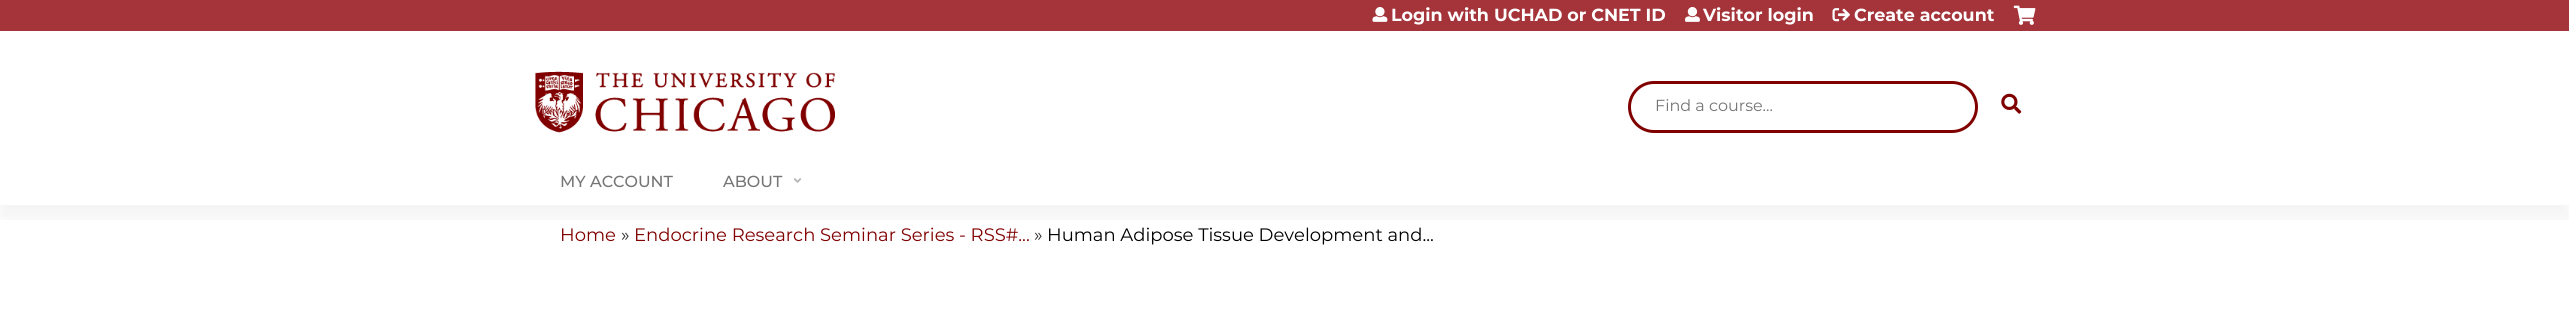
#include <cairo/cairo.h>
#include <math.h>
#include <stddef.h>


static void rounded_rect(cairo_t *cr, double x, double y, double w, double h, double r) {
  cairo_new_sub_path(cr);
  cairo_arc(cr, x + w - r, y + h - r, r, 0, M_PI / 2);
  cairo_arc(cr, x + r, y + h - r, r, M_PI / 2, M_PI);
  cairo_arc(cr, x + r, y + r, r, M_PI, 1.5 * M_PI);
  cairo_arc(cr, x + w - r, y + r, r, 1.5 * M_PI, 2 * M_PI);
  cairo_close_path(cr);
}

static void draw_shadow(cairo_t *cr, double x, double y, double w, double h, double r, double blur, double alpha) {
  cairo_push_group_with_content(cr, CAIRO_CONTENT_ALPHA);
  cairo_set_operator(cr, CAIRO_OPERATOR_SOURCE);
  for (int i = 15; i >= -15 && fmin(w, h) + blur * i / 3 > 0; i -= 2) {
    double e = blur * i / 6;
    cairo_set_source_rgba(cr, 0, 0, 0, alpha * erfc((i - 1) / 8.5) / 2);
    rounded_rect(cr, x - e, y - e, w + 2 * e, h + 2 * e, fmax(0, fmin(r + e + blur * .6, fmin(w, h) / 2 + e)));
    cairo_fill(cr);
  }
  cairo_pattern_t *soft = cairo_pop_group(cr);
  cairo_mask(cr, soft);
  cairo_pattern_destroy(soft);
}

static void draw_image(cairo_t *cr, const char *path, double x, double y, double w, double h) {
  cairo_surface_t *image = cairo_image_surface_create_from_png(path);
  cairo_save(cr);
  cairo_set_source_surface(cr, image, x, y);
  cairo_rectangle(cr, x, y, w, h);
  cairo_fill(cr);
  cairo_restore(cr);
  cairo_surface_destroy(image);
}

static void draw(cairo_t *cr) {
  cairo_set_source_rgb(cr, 1, 1, 1);
  cairo_paint(cr);
  cairo_set_source_rgb(cr, 164 / 255.0, 52 / 255.0, 58 / 255.0);
  cairo_rectangle(cr, 0, 0, 2569, 31);
  cairo_fill(cr);
  draw_image(cr, "images/1.png", 535, 71, 300, 62);
  draw_image(cr, "images/2.png", 1372, 7, 16, 15);
  draw_image(cr, "images/3.png", 1685, 7, 15, 15);
  draw_image(cr, "images/4.png", 1832, 8, 18, 14);
  draw_image(cr, "images/5.png", 2013, 5, 23, 20);
  rounded_rect(cr, 1629.5, 82.5, 347, 49, 24.5);
  cairo_set_source_rgb(cr, 128 / 255.0, 0, 0);
  cairo_set_line_width(cr, 3);
  cairo_stroke(cr);
  draw_image(cr, "images/6.png", 2001, 93, 21, 21);
  cairo_save(cr);
  cairo_rectangle(cr, 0, 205, 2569, 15);
  cairo_clip(cr);
  cairo_set_source_rgb(cr, 0, 0, 0);
  draw_shadow(cr, 0, 170, 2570, 48, 0, 9.5, 0.05);
  cairo_restore(cr);
  draw_image(cr, "images/7.png", 793, 178, 9, 5);
  cairo_select_font_face(cr, "Montserrat", CAIRO_FONT_SLANT_NORMAL, CAIRO_FONT_WEIGHT_BOLD);
  cairo_set_font_size(cr, 17.5);
  cairo_set_source_rgb(cr, 1, 1, 1);
  cairo_move_to(cr, 1391, 21);
  cairo_show_text(cr, "Login with UCHAD or CNET ID");
  cairo_move_to(cr, 1703, 21);
  cairo_show_text(cr, "Visitor login");
  cairo_move_to(cr, 1854, 21);
  cairo_show_text(cr, "Create account");
  cairo_select_font_face(cr, "Montserrat", CAIRO_FONT_SLANT_NORMAL, CAIRO_FONT_WEIGHT_NORMAL);
  cairo_set_font_size(cr, 16);
  cairo_set_source_rgb(cr, 117 / 255.0, 117 / 255.0, 117 / 255.0);
  cairo_move_to(cr, 1655, 111);
  cairo_show_text(cr, "Find a course...");
  cairo_select_font_face(cr, "Montserrat Medium", CAIRO_FONT_SLANT_NORMAL, CAIRO_FONT_WEIGHT_NORMAL);
  cairo_move_to(cr, 560, 187);
  cairo_show_text(cr, "MY ACCOUNT");
  cairo_move_to(cr, 723, 187);
  cairo_show_text(cr, "ABOUT");
  cairo_select_font_face(cr, "Montserrat", CAIRO_FONT_SLANT_NORMAL, CAIRO_FONT_WEIGHT_NORMAL);
  cairo_set_font_size(cr, 18);
  cairo_set_source_rgb(cr, 128 / 255.0, 0, 0);
  cairo_move_to(cr, 560, 241);
  cairo_show_text(cr, "Home");
  cairo_set_source_rgb(cr, 47 / 255.0, 47 / 255.0, 47 / 255.0);
  cairo_move_to(cr, 621, 241);
  cairo_show_text(cr, "»");
  cairo_set_source_rgb(cr, 128 / 255.0, 0, 0);
  cairo_move_to(cr, 634, 241);
  cairo_show_text(cr, "Endocrine Research Seminar Series - RSS#...");
  cairo_set_source_rgb(cr, 47 / 255.0, 47 / 255.0, 47 / 255.0);
  cairo_move_to(cr, 1034, 241);
  cairo_show_text(cr, "»");
  cairo_set_source_rgb(cr, 0, 0, 0);
  cairo_move_to(cr, 1047, 241);
  cairo_show_text(cr, "Human Adipose Tissue Development and...");
}

int main(void) {
  cairo_surface_t *surface = cairo_image_surface_create(CAIRO_FORMAT_RGB24, 2569, 331);
  cairo_t *cr = cairo_create(surface);
  cairo_font_options_t *options = cairo_font_options_create();
  cairo_font_options_set_hint_metrics(options, CAIRO_HINT_METRICS_OFF);
  cairo_font_options_set_hint_style(options, CAIRO_HINT_STYLE_NONE);
  cairo_set_font_options(cr, options);
  cairo_set_miter_limit(cr, 4);
  draw(cr);
  cairo_surface_write_to_png(surface, "out.png");
  cairo_font_options_destroy(options);
  cairo_destroy(cr);
  cairo_surface_destroy(surface);
  return 0;
}
